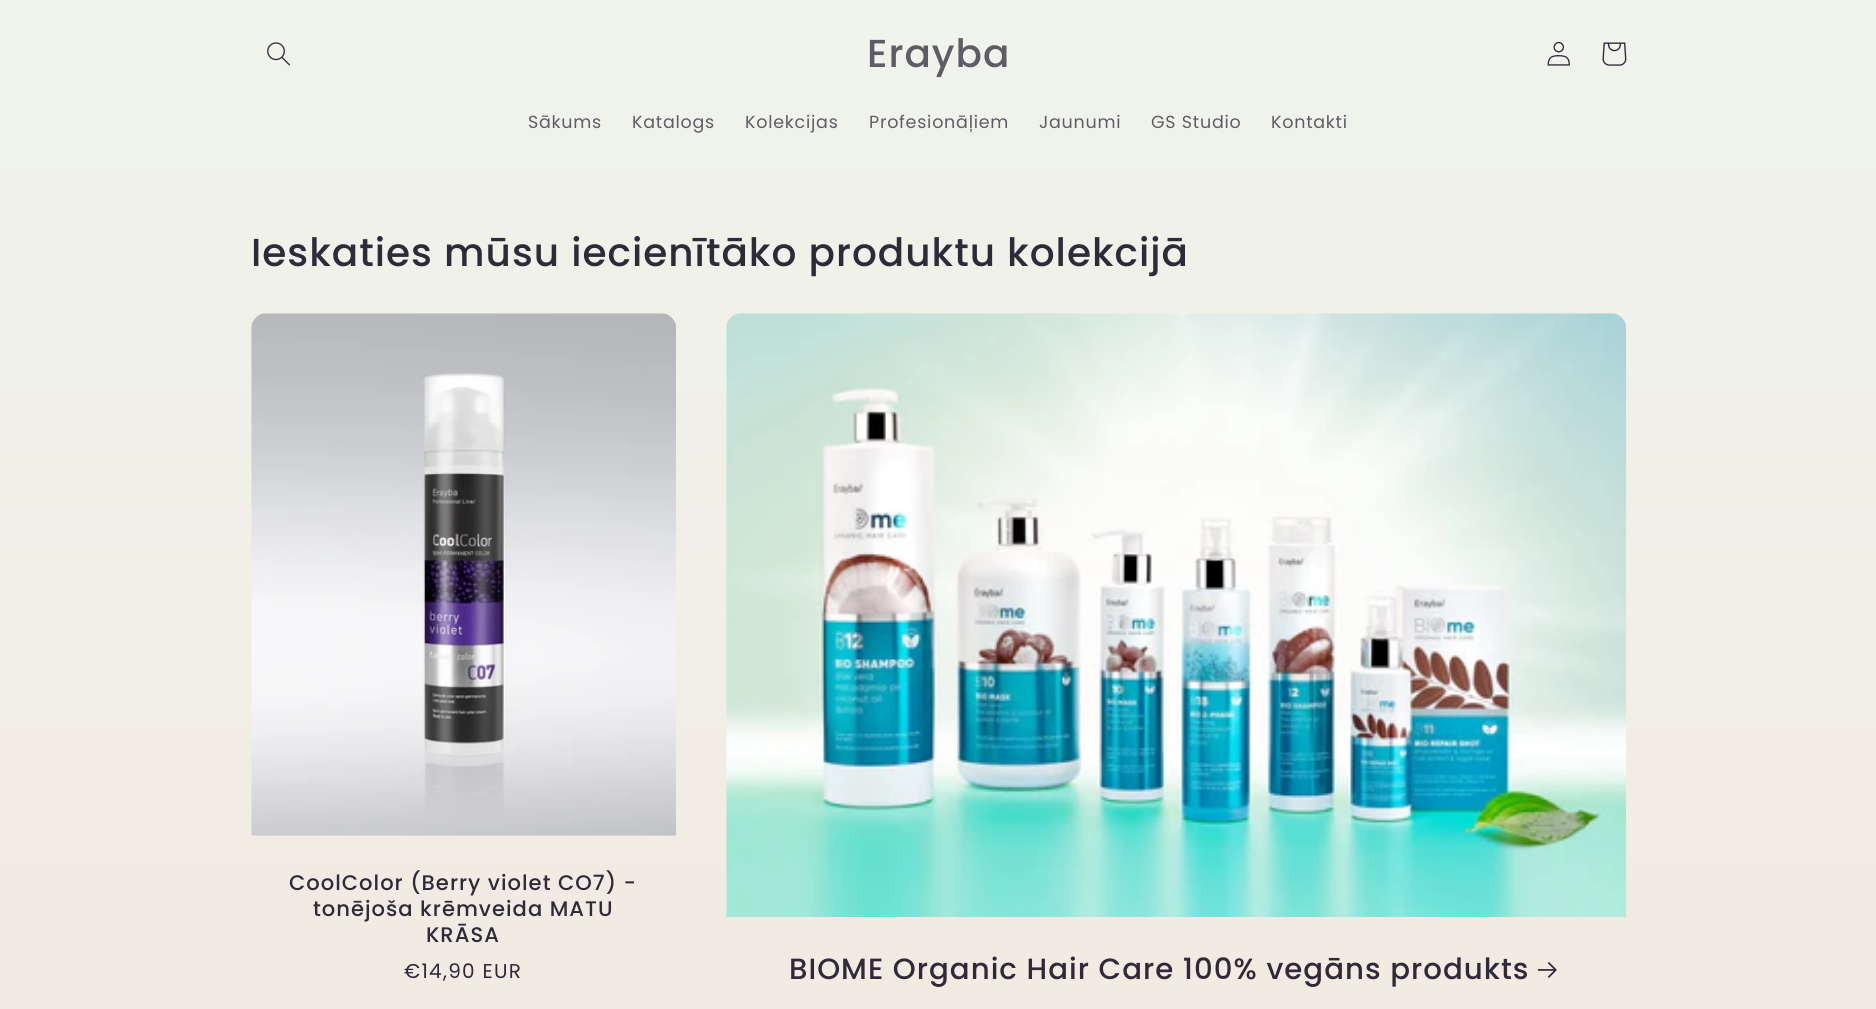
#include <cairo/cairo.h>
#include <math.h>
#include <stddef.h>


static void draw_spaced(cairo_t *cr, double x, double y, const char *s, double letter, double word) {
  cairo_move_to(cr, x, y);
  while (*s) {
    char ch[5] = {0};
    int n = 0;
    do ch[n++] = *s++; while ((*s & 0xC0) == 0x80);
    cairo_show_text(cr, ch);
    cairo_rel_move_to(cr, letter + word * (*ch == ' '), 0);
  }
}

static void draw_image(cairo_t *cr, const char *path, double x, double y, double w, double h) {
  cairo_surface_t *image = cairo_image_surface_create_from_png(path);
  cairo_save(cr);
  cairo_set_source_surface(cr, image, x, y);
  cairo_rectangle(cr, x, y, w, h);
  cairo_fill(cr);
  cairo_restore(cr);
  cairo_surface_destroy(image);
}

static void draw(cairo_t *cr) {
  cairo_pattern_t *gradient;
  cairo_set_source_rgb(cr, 1, 1, 1);
  cairo_paint(cr);
  gradient = cairo_pattern_create_linear(938, 0, 938, 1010);
  cairo_pattern_add_color_stop_rgba(gradient, 0, 240 / 255.0, 244 / 255.0, 236 / 255.0, 1);
  cairo_pattern_add_color_stop_rgba(gradient, 1, 241 / 255.0, 235 / 255.0, 226 / 255.0, 1);
  cairo_set_source(cr, gradient);
  cairo_pattern_destroy(gradient);
  cairo_rectangle(cr, 0, 0, 1876, 1009);
  cairo_fill(cr);
  draw_image(cr, "images/1.png", 267, 42, 23, 24);
  draw_image(cr, "images/2.png", 1547, 41, 23, 25);
  draw_image(cr, "images/3.png", 1602, 42, 25, 24);
  draw_image(cr, "images/4.png", 251, 313, 425, 523);
  draw_image(cr, "images/5.png", 726, 313, 901, 604);
  draw_image(cr, "images/6.png", 1538, 962, 19, 16);
  cairo_select_font_face(cr, "Poppins Medium", CAIRO_FONT_SLANT_NORMAL, CAIRO_FONT_WEIGHT_NORMAL);
  cairo_set_font_size(cr, 39);
  cairo_set_source_rgb(cr, 95 / 255.0, 92 / 255.0, 102 / 255.0);
  draw_spaced(cr, 867, 67, "Erayba", 1, 0);
  cairo_select_font_face(cr, "Poppins", CAIRO_FONT_SLANT_NORMAL, CAIRO_FONT_WEIGHT_NORMAL);
  cairo_set_font_size(cr, 17.5);
  draw_spaced(cr, 528, 128, "Sākums", 0.75, 0);
  draw_spaced(cr, 632, 128, "Katalogs", 0.75, 0);
  draw_spaced(cr, 745, 128, "Kolekcijas", 0.75, 0);
  draw_spaced(cr, 869, 128, "Profesionāļiem", 0.75, 0);
  draw_spaced(cr, 1039, 128, "Jaunumi", 0.75, 0);
  draw_spaced(cr, 1151, 128, "GS Studio", 0.75, 0);
  draw_spaced(cr, 1271, 128, "Kontakti", 0.75, 0);
  cairo_select_font_face(cr, "Poppins Medium", CAIRO_FONT_SLANT_NORMAL, CAIRO_FONT_WEIGHT_NORMAL);
  cairo_set_font_size(cr, 39);
  cairo_set_source_rgb(cr, 46 / 255.0, 42 / 255.0, 57 / 255.0);
  draw_spaced(cr, 251, 266, "Ieskaties mūsu iecienītāko produktu kolekcijā", 1, 0);
  cairo_set_font_size(cr, 21.1);
  draw_spaced(cr, 289, 890, "CoolColor (Berry violet CO7) -", 1, 0);
  draw_spaced(cr, 313, 916, "tonējoša krēmveida MATU", 1, 0);
  draw_spaced(cr, 426, 942, "KRĀSA", 1, 0);
  cairo_select_font_face(cr, "Poppins", CAIRO_FONT_SLANT_NORMAL, CAIRO_FONT_WEIGHT_NORMAL);
  cairo_set_font_size(cr, 20);
  draw_spaced(cr, 404, 978, "€14,90 EUR", 1.25, 0);
  cairo_select_font_face(cr, "Poppins Medium", CAIRO_FONT_SLANT_NORMAL, CAIRO_FONT_WEIGHT_NORMAL);
  cairo_set_font_size(cr, 29.25);
  draw_spaced(cr, 789, 979, "BIOME Organic Hair Care 100% vegāns produkts", 1, 0);
}

int main(void) {
  cairo_surface_t *surface = cairo_image_surface_create(CAIRO_FORMAT_RGB24, 1876, 1009);
  cairo_t *cr = cairo_create(surface);
  cairo_font_options_t *options = cairo_font_options_create();
  cairo_font_options_set_hint_metrics(options, CAIRO_HINT_METRICS_OFF);
  cairo_font_options_set_hint_style(options, CAIRO_HINT_STYLE_NONE);
  cairo_set_font_options(cr, options);
  cairo_set_miter_limit(cr, 4);
  draw(cr);
  cairo_surface_write_to_png(surface, "out.png");
  cairo_font_options_destroy(options);
  cairo_destroy(cr);
  cairo_surface_destroy(surface);
  return 0;
}
